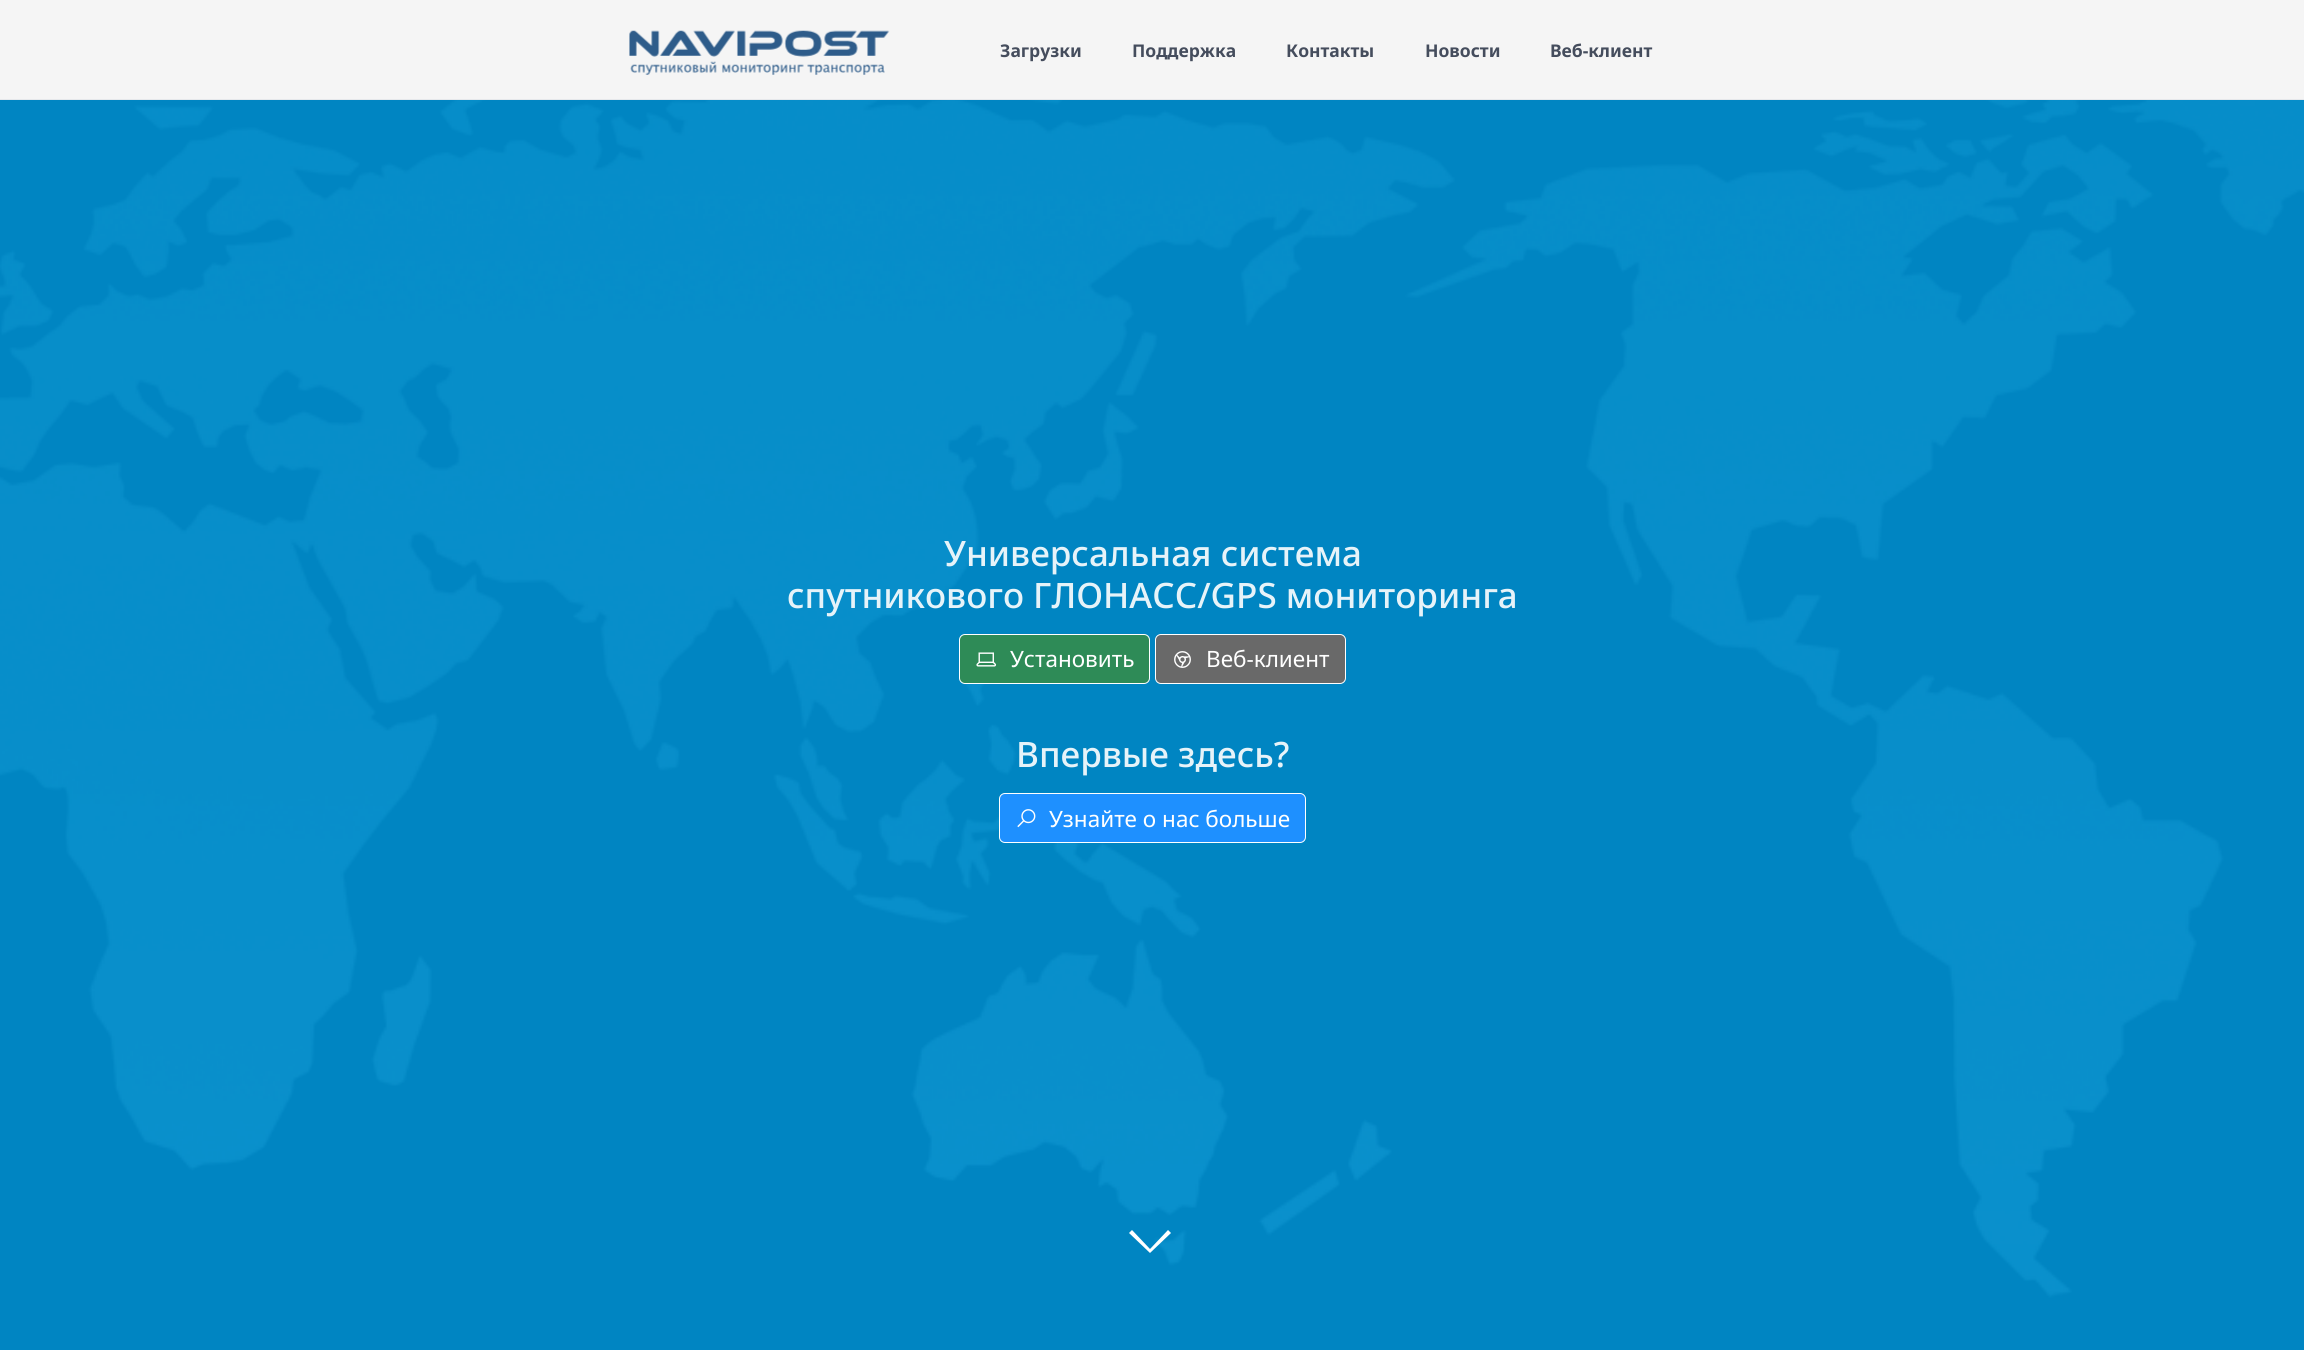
#include <cairo/cairo.h>
#include <math.h>
#include <stddef.h>


static void rounded_rect(cairo_t *cr, double x, double y, double w, double h, double r) {
  cairo_new_sub_path(cr);
  cairo_arc(cr, x + w - r, y + h - r, r, 0, M_PI / 2);
  cairo_arc(cr, x + r, y + h - r, r, M_PI / 2, M_PI);
  cairo_arc(cr, x + r, y + r, r, M_PI, 1.5 * M_PI);
  cairo_arc(cr, x + w - r, y + r, r, 1.5 * M_PI, 2 * M_PI);
  cairo_close_path(cr);
}

static void draw_image(cairo_t *cr, const char *path, double x, double y, double w, double h) {
  cairo_surface_t *image = cairo_image_surface_create_from_png(path);
  cairo_save(cr);
  cairo_set_source_surface(cr, image, x, y);
  cairo_rectangle(cr, x, y, w, h);
  cairo_fill(cr);
  cairo_restore(cr);
  cairo_surface_destroy(image);
}

static void draw(cairo_t *cr) {
  cairo_set_source_rgb(cr, 1, 1, 1);
  cairo_paint(cr);
  cairo_set_source_rgb(cr, 245 / 255.0, 245 / 255.0, 245 / 255.0);
  cairo_rectangle(cr, 0, 0, 2304, 99);
  cairo_fill(cr);
  cairo_set_source_rgb(cr, 230 / 255.0, 232 / 255.0, 235 / 255.0);
  cairo_rectangle(cr, 0, 99, 2304, 1);
  cairo_fill(cr);
  draw_image(cr, "images/1.png", 629, 30, 261, 45);
  draw_image(cr, "images/2.png", 0, 100, 2304, 1250);
  cairo_set_source_rgb(cr, 46 / 255.0, 139 / 255.0, 87 / 255.0);
  rounded_rect(cr, 959.5, 634.5, 190, 49, 5.5);
  cairo_fill_preserve(cr);
  cairo_set_source_rgb(cr, 1, 1, 1);
  cairo_set_line_width(cr, 1);
  cairo_stroke(cr);
  draw_image(cr, "images/3.png", 976, 652, 21, 15);
  cairo_set_source_rgb(cr, 105 / 255.0, 105 / 255.0, 105 / 255.0);
  rounded_rect(cr, 1155.5, 634.5, 190, 49, 5.5);
  cairo_fill_preserve(cr);
  cairo_set_source_rgb(cr, 1, 1, 1);
  cairo_stroke(cr);
  draw_image(cr, "images/4.png", 1174, 651, 17, 17);
  cairo_set_source_rgb(cr, 30 / 255.0, 144 / 255.0, 1);
  rounded_rect(cr, 999.5, 793.5, 306, 49, 5.5);
  cairo_fill_preserve(cr);
  cairo_set_source_rgb(cr, 1, 1, 1);
  cairo_stroke(cr);
  draw_image(cr, "images/5.png", 1017, 809, 19, 19);
  cairo_new_path(cr);
  cairo_move_to(cr, 1132, 1230);
  cairo_line_to(cr, 1150, 1249);
  cairo_line_to(cr, 1168, 1230);
  cairo_line_to(cr, 1171, 1233);
  cairo_line_to(cr, 1150, 1253);
  cairo_line_to(cr, 1129, 1233);
  cairo_close_path(cr);
  cairo_fill(cr);
  cairo_select_font_face(cr, "Noto Sans", CAIRO_FONT_SLANT_NORMAL, CAIRO_FONT_WEIGHT_BOLD);
  cairo_set_font_size(cr, 17.5);
  cairo_set_source_rgb(cr, 69 / 255.0, 77 / 255.0, 93 / 255.0);
  cairo_move_to(cr, 1000, 57);
  cairo_show_text(cr, "Загрузки");
  cairo_move_to(cr, 1132, 57);
  cairo_show_text(cr, "Поддержка");
  cairo_move_to(cr, 1286, 57);
  cairo_show_text(cr, "Контакты");
  cairo_move_to(cr, 1425, 57);
  cairo_show_text(cr, "Новости");
  cairo_move_to(cr, 1550, 57);
  cairo_show_text(cr, "Веб-клиент");
  cairo_select_font_face(cr, "Noto Sans Medium", CAIRO_FONT_SLANT_NORMAL, CAIRO_FONT_WEIGHT_NORMAL);
  cairo_set_font_size(cr, 35);
  cairo_set_source_rgb(cr, 230 / 255.0, 243 / 255.0, 249 / 255.0);
  cairo_move_to(cr, 944, 566);
  cairo_show_text(cr, "Универсальная система");
  cairo_move_to(cr, 787, 608);
  cairo_show_text(cr, "спутникового ГЛОНАСС/GPS мониторинга");
  cairo_select_font_face(cr, "Noto Sans", CAIRO_FONT_SLANT_NORMAL, CAIRO_FONT_WEIGHT_NORMAL);
  cairo_set_font_size(cr, 22.5);
  cairo_set_source_rgb(cr, 1, 1, 1);
  cairo_move_to(cr, 1010, 667);
  cairo_show_text(cr, "Установить");
  cairo_move_to(cr, 1206, 667);
  cairo_show_text(cr, "Веб-клиент");
  cairo_select_font_face(cr, "Noto Sans Medium", CAIRO_FONT_SLANT_NORMAL, CAIRO_FONT_WEIGHT_NORMAL);
  cairo_set_font_size(cr, 35);
  cairo_set_source_rgb(cr, 230 / 255.0, 243 / 255.0, 249 / 255.0);
  cairo_move_to(cr, 1016, 767);
  cairo_show_text(cr, "Впервые здесь?");
  cairo_select_font_face(cr, "Noto Sans", CAIRO_FONT_SLANT_NORMAL, CAIRO_FONT_WEIGHT_NORMAL);
  cairo_set_font_size(cr, 22.5);
  cairo_set_source_rgb(cr, 1, 1, 1);
  cairo_move_to(cr, 1049, 827);
  cairo_show_text(cr, "Узнайте о нас больше");
}

int main(void) {
  cairo_surface_t *surface = cairo_image_surface_create(CAIRO_FORMAT_RGB24, 2304, 1350);
  cairo_t *cr = cairo_create(surface);
  cairo_font_options_t *options = cairo_font_options_create();
  cairo_font_options_set_hint_metrics(options, CAIRO_HINT_METRICS_OFF);
  cairo_font_options_set_hint_style(options, CAIRO_HINT_STYLE_NONE);
  cairo_set_font_options(cr, options);
  cairo_set_miter_limit(cr, 4);
  draw(cr);
  cairo_surface_write_to_png(surface, "out.png");
  cairo_font_options_destroy(options);
  cairo_destroy(cr);
  cairo_surface_destroy(surface);
  return 0;
}
